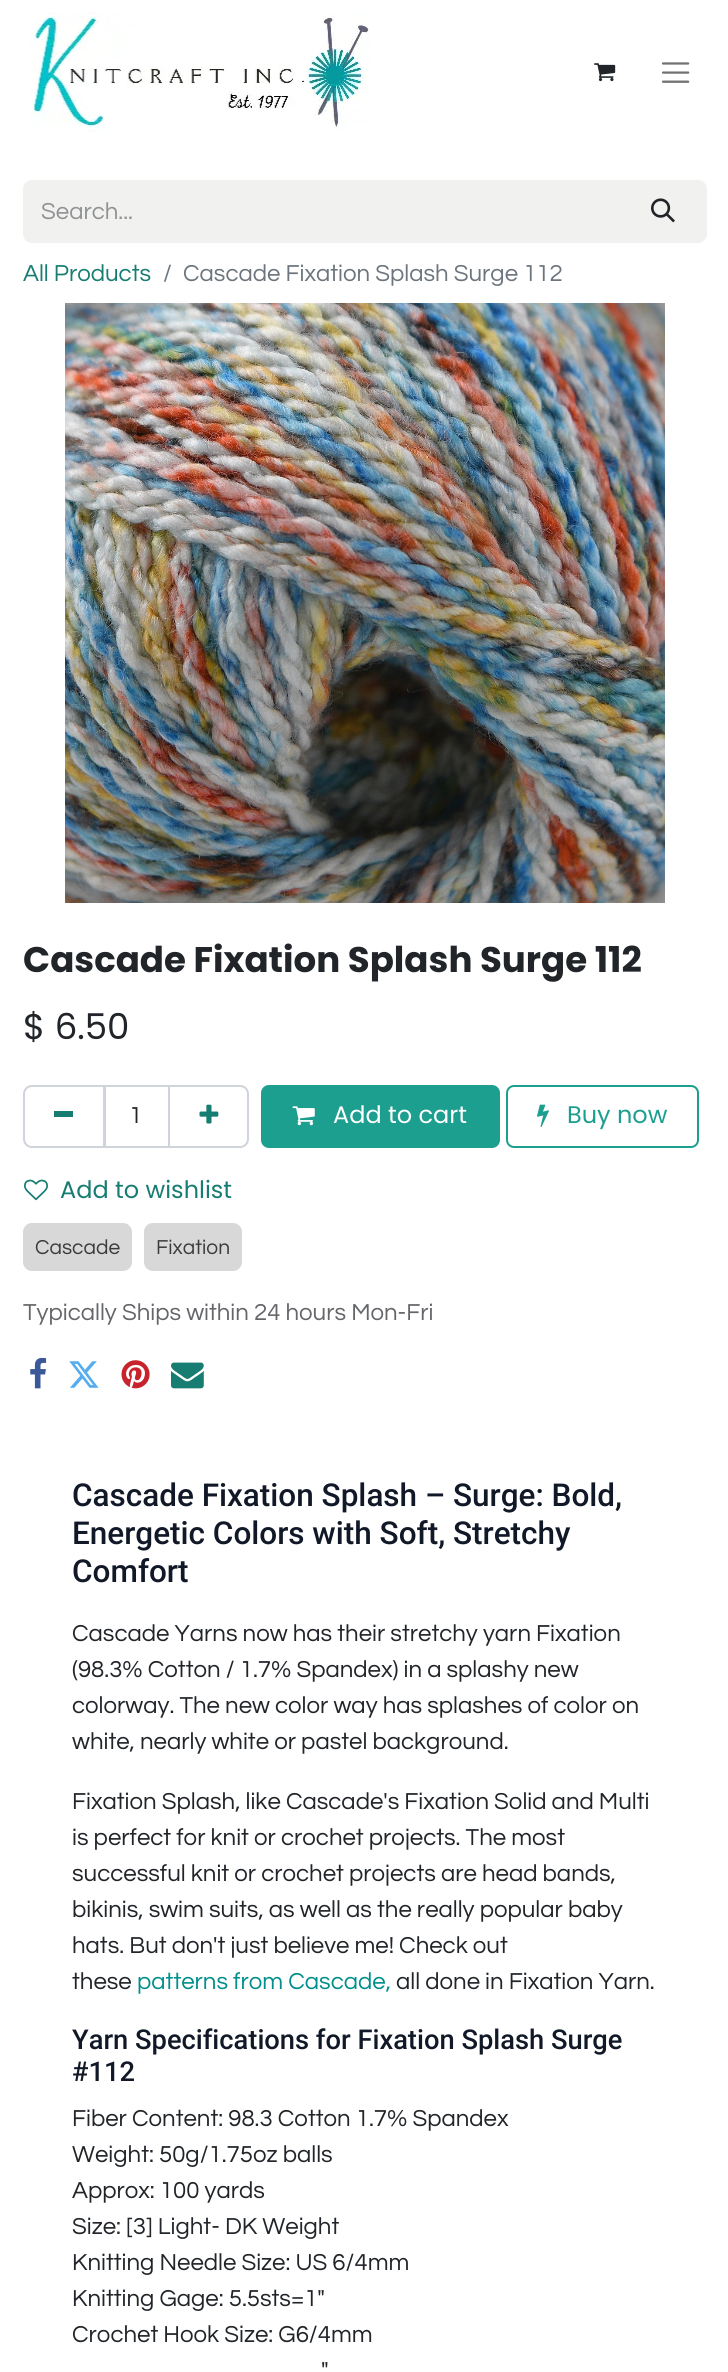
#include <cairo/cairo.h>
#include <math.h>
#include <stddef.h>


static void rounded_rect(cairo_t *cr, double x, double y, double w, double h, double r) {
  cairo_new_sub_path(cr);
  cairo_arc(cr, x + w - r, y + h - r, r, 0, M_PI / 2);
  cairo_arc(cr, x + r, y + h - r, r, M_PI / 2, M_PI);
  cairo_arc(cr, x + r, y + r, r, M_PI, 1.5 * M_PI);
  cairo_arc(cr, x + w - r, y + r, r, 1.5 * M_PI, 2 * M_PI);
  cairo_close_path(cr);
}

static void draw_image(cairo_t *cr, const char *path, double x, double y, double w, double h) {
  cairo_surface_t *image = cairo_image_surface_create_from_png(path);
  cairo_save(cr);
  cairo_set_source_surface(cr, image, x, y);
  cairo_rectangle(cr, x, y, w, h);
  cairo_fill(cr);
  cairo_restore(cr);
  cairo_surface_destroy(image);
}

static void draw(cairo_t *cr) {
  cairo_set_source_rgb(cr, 1, 1, 1);
  cairo_paint(cr);
  draw_image(cr, "images/1.png", 30, 12, 340, 120);
  draw_image(cr, "images/2.png", 594, 63, 22, 19);
  draw_image(cr, "images/3.png", 661, 62, 29, 21);
  cairo_set_source_rgb(cr, 241 / 255.0, 241 / 255.0, 239 / 255.0);
  cairo_new_path(cr);
  cairo_move_to(cr, 32, 180);
  cairo_line_to(cr, 621, 180);
  cairo_line_to(cr, 621, 243);
  cairo_line_to(cr, 32, 243);
  cairo_curve_to(cr, 27, 243, 23, 239, 23, 234);
  cairo_line_to(cr, 23, 189);
  cairo_curve_to(cr, 23, 184, 27, 180, 32, 180);
  cairo_close_path(cr);
  cairo_fill(cr);
  cairo_new_path(cr);
  cairo_move_to(cr, 621, 181);
  cairo_line_to(cr, 698, 181);
  cairo_curve_to(cr, 702.5, 181, 706, 184.5, 706, 189);
  cairo_line_to(cr, 706, 234);
  cairo_curve_to(cr, 706, 238.5, 702.5, 242, 698, 242);
  cairo_line_to(cr, 621, 242);
  cairo_close_path(cr);
  cairo_fill_preserve(cr);
  cairo_stroke(cr);
  draw_image(cr, "images/4.png", 651, 198, 24, 25);
  draw_image(cr, "images/5.png", 65, 303, 600, 600);
  cairo_rectangle(cr, 105, 1086, 64, 61);
  cairo_set_source_rgb(cr, 206 / 255.0, 212 / 255.0, 218 / 255.0);
  cairo_stroke(cr);
  cairo_new_path(cr);
  cairo_move_to(cr, 32, 1086);
  cairo_line_to(cr, 104, 1086);
  cairo_line_to(cr, 104, 1147);
  cairo_line_to(cr, 32, 1147);
  cairo_curve_to(cr, 27.5, 1147, 24, 1143.5, 24, 1139);
  cairo_line_to(cr, 24, 1094);
  cairo_curve_to(cr, 24, 1089.5, 27.5, 1086, 32, 1086);
  cairo_close_path(cr);
  cairo_stroke(cr);
  cairo_set_source_rgb(cr, 23 / 255.0, 124 / 255.0, 113 / 255.0);
  cairo_rectangle(cr, 54, 1111, 19, 6);
  cairo_fill(cr);
  cairo_new_path(cr);
  cairo_move_to(cr, 169, 1086);
  cairo_line_to(cr, 240, 1086);
  cairo_curve_to(cr, 244.5, 1086, 248, 1089.5, 248, 1094);
  cairo_line_to(cr, 248, 1139);
  cairo_curve_to(cr, 248, 1143.5, 244.5, 1147, 240, 1147);
  cairo_line_to(cr, 169, 1147);
  cairo_close_path(cr);
  cairo_set_source_rgb(cr, 206 / 255.0, 212 / 255.0, 218 / 255.0);
  cairo_stroke(cr);
  draw_image(cr, "images/6.png", 199, 1104, 20, 20);
  cairo_set_source_rgb(cr, 29 / 255.0, 159 / 255.0, 144 / 255.0);
  rounded_rect(cr, 262, 1086, 237, 61, 7);
  cairo_fill_preserve(cr);
  cairo_stroke(cr);
  draw_image(cr, "images/7.png", 292, 1106, 23, 20);
  rounded_rect(cr, 507, 1086, 191, 61, 7);
  cairo_stroke(cr);
  draw_image(cr, "images/8.png", 537, 1104, 12, 23);
  draw_image(cr, "images/9.png", 24, 1179, 24, 22);
  draw_image(cr, "images/10.png", 30, 1357, 17, 32);
  draw_image(cr, "images/11.png", 69, 1361, 30, 27);
  draw_image(cr, "images/12.png", 121, 1360, 29, 29);
  draw_image(cr, "images/13.png", 171, 1362, 33, 27);
  cairo_select_font_face(cr, "Questrial", CAIRO_FONT_SLANT_NORMAL, CAIRO_FONT_WEIGHT_NORMAL);
  cairo_set_font_size(cr, 24);
  cairo_set_source_rgb(cr, 144 / 255.0, 146 / 255.0, 148 / 255.0);
  cairo_move_to(cr, 41, 219);
  cairo_show_text(cr, "Search...");
  cairo_set_source_rgb(cr, 23 / 255.0, 124 / 255.0, 113 / 255.0);
  cairo_move_to(cr, 23, 281);
  cairo_show_text(cr, "All Products");
  cairo_set_source_rgb(cr, 108 / 255.0, 117 / 255.0, 125 / 255.0);
  cairo_move_to(cr, 163, 281);
  cairo_show_text(cr, "/");
  cairo_move_to(cr, 183, 281);
  cairo_show_text(cr, "Cascade Fixation Splash Surge 112");
  cairo_select_font_face(cr, "Poppins", CAIRO_FONT_SLANT_NORMAL, CAIRO_FONT_WEIGHT_BOLD);
  cairo_set_font_size(cr, 35.6);
  cairo_set_source_rgb(cr, 33 / 255.0, 37 / 255.0, 41 / 255.0);
  cairo_move_to(cr, 23, 972);
  cairo_show_text(cr, "Cascade Fixation Splash Surge 112");
  cairo_select_font_face(cr, "Poppins", CAIRO_FONT_SLANT_NORMAL, CAIRO_FONT_WEIGHT_NORMAL);
  cairo_move_to(cr, 23, 1039);
  cairo_show_text(cr, "$ 6.50");
  cairo_select_font_face(cr, "Questrial", CAIRO_FONT_SLANT_NORMAL, CAIRO_FONT_WEIGHT_NORMAL);
  cairo_set_font_size(cr, 24);
  cairo_move_to(cr, 129, 1123);
  cairo_show_text(cr, "1");
  cairo_select_font_face(cr, "Poppins", CAIRO_FONT_SLANT_NORMAL, CAIRO_FONT_WEIGHT_NORMAL);
  cairo_set_source_rgb(cr, 1, 1, 1);
  cairo_move_to(cr, 333, 1123);
  cairo_show_text(cr, "Add to cart");
  cairo_set_source_rgb(cr, 29 / 255.0, 159 / 255.0, 144 / 255.0);
  cairo_move_to(cr, 567, 1123);
  cairo_show_text(cr, "Buy now");
  cairo_set_source_rgb(cr, 23 / 255.0, 124 / 255.0, 113 / 255.0);
  cairo_move_to(cr, 60, 1198);
  cairo_show_text(cr, "Add to wishlist");
  cairo_select_font_face(cr, "Questrial", CAIRO_FONT_SLANT_NORMAL, CAIRO_FONT_WEIGHT_NORMAL);
  cairo_set_font_size(cr, 21);
  cairo_set_source_rgb(cr, 60 / 255.0, 60 / 255.0, 60 / 255.0);
  cairo_move_to(cr, 35, 1254);
  cairo_show_text(cr, "Cascade");
  cairo_set_source_rgba(cr, 60 / 255.0, 60 / 255.0, 60 / 255.0, 0.2);
  rounded_rect(cr, 23, 1223, 109, 48, 9);
  cairo_fill(cr);
  cairo_set_source_rgb(cr, 60 / 255.0, 60 / 255.0, 60 / 255.0);
  cairo_move_to(cr, 156, 1254);
  cairo_show_text(cr, "Fixation");
  cairo_set_source_rgba(cr, 60 / 255.0, 60 / 255.0, 60 / 255.0, 0.2);
  rounded_rect(cr, 144, 1223, 98, 48, 9);
  cairo_fill(cr);
  cairo_set_font_size(cr, 24);
  cairo_set_source_rgb(cr, 100 / 255.0, 102 / 255.0, 105 / 255.0);
  cairo_move_to(cr, 23, 1320);
  cairo_show_text(cr, "Typically Ships within 24 hours Mon-Fri");
  cairo_select_font_face(cr, "Roboto Medium", CAIRO_FONT_SLANT_NORMAL, CAIRO_FONT_WEIGHT_NORMAL);
  cairo_set_font_size(cr, 31.5);
  cairo_set_source_rgb(cr, 17 / 255.0, 24 / 255.0, 39 / 255.0);
  cairo_move_to(cr, 72, 1506);
  cairo_show_text(cr, "Cascade Fixation Splash – Surge: Bold,");
  cairo_move_to(cr, 72, 1544);
  cairo_show_text(cr, "Energetic Colors with Soft, Stretchy");
  cairo_move_to(cr, 72, 1582);
  cairo_show_text(cr, "Comfort");
  cairo_select_font_face(cr, "Questrial", CAIRO_FONT_SLANT_NORMAL, CAIRO_FONT_WEIGHT_NORMAL);
  cairo_set_font_size(cr, 24);
  cairo_set_source_rgb(cr, 33 / 255.0, 37 / 255.0, 41 / 255.0);
  cairo_move_to(cr, 72, 1641);
  cairo_show_text(cr, "Cascade Yarns now has their stretchy yarn Fixation");
  cairo_move_to(cr, 72, 1677);
  cairo_show_text(cr, "(98.3% Cotton / 1.7% Spandex) in a splashy new");
  cairo_move_to(cr, 72, 1713);
  cairo_show_text(cr, "colorway. The new color way has splashes of color on");
  cairo_move_to(cr, 72, 1749);
  cairo_show_text(cr, "white, nearly white or pastel background.");
  cairo_move_to(cr, 72, 1809);
  cairo_show_text(cr, "Fixation Splash, like Cascade's Fixation Solid and Multi");
  cairo_move_to(cr, 72, 1845);
  cairo_show_text(cr, "is perfect for knit or crochet projects. The most");
  cairo_move_to(cr, 72, 1881);
  cairo_show_text(cr, "successful knit or crochet projects are head bands,");
  cairo_move_to(cr, 72, 1917);
  cairo_show_text(cr, "bikinis, swim suits, as well as the really popular baby");
  cairo_move_to(cr, 72, 1953);
  cairo_show_text(cr, "hats. But don't just believe me! Check out");
  cairo_move_to(cr, 72, 1989);
  cairo_show_text(cr, "these");
  cairo_set_source_rgb(cr, 0, 143 / 255.0, 140 / 255.0);
  cairo_move_to(cr, 137, 1989);
  cairo_show_text(cr, "patterns from Cascade,");
  cairo_set_source_rgb(cr, 33 / 255.0, 37 / 255.0, 41 / 255.0);
  cairo_move_to(cr, 396, 1989);
  cairo_show_text(cr, "all done in Fixation Yarn.");
  cairo_select_font_face(cr, "Roboto Medium", CAIRO_FONT_SLANT_NORMAL, CAIRO_FONT_WEIGHT_NORMAL);
  cairo_set_font_size(cr, 27.3);
  cairo_set_source_rgb(cr, 17 / 255.0, 24 / 255.0, 39 / 255.0);
  cairo_move_to(cr, 72, 2049);
  cairo_show_text(cr, "Yarn Specifications for Fixation Splash Surge");
  cairo_move_to(cr, 72, 2081);
  cairo_show_text(cr, "#112");
  cairo_select_font_face(cr, "Questrial", CAIRO_FONT_SLANT_NORMAL, CAIRO_FONT_WEIGHT_NORMAL);
  cairo_set_font_size(cr, 24);
  cairo_set_source_rgb(cr, 33 / 255.0, 37 / 255.0, 41 / 255.0);
  cairo_move_to(cr, 72, 2126);
  cairo_show_text(cr, "Fiber Content: 98.3 Cotton 1.7% Spandex");
  cairo_move_to(cr, 72, 2162);
  cairo_show_text(cr, "Weight: 50g/1.75oz balls");
  cairo_move_to(cr, 72, 2198);
  cairo_show_text(cr, "Approx: 100 yards");
  cairo_move_to(cr, 72, 2234);
  cairo_show_text(cr, "Size: [3] Light- DK Weight");
  cairo_move_to(cr, 72, 2270);
  cairo_show_text(cr, "Knitting Needle Size: US 6/4mm");
  cairo_move_to(cr, 72, 2306);
  cairo_show_text(cr, "Knitting Gage: 5.5sts=1\"");
  cairo_move_to(cr, 72, 2342);
  cairo_show_text(cr, "Crochet Hook Size: G6/4mm");
  cairo_move_to(cr, 321, 2378);
  cairo_show_text(cr, "\"");
}

int main(void) {
  cairo_surface_t *surface = cairo_image_surface_create(CAIRO_FORMAT_RGB24, 728, 2372);
  cairo_t *cr = cairo_create(surface);
  cairo_font_options_t *options = cairo_font_options_create();
  cairo_font_options_set_hint_metrics(options, CAIRO_HINT_METRICS_OFF);
  cairo_font_options_set_hint_style(options, CAIRO_HINT_STYLE_NONE);
  cairo_set_font_options(cr, options);
  cairo_set_miter_limit(cr, 4);
  draw(cr);
  cairo_surface_write_to_png(surface, "out.png");
  cairo_font_options_destroy(options);
  cairo_destroy(cr);
  cairo_surface_destroy(surface);
  return 0;
}
